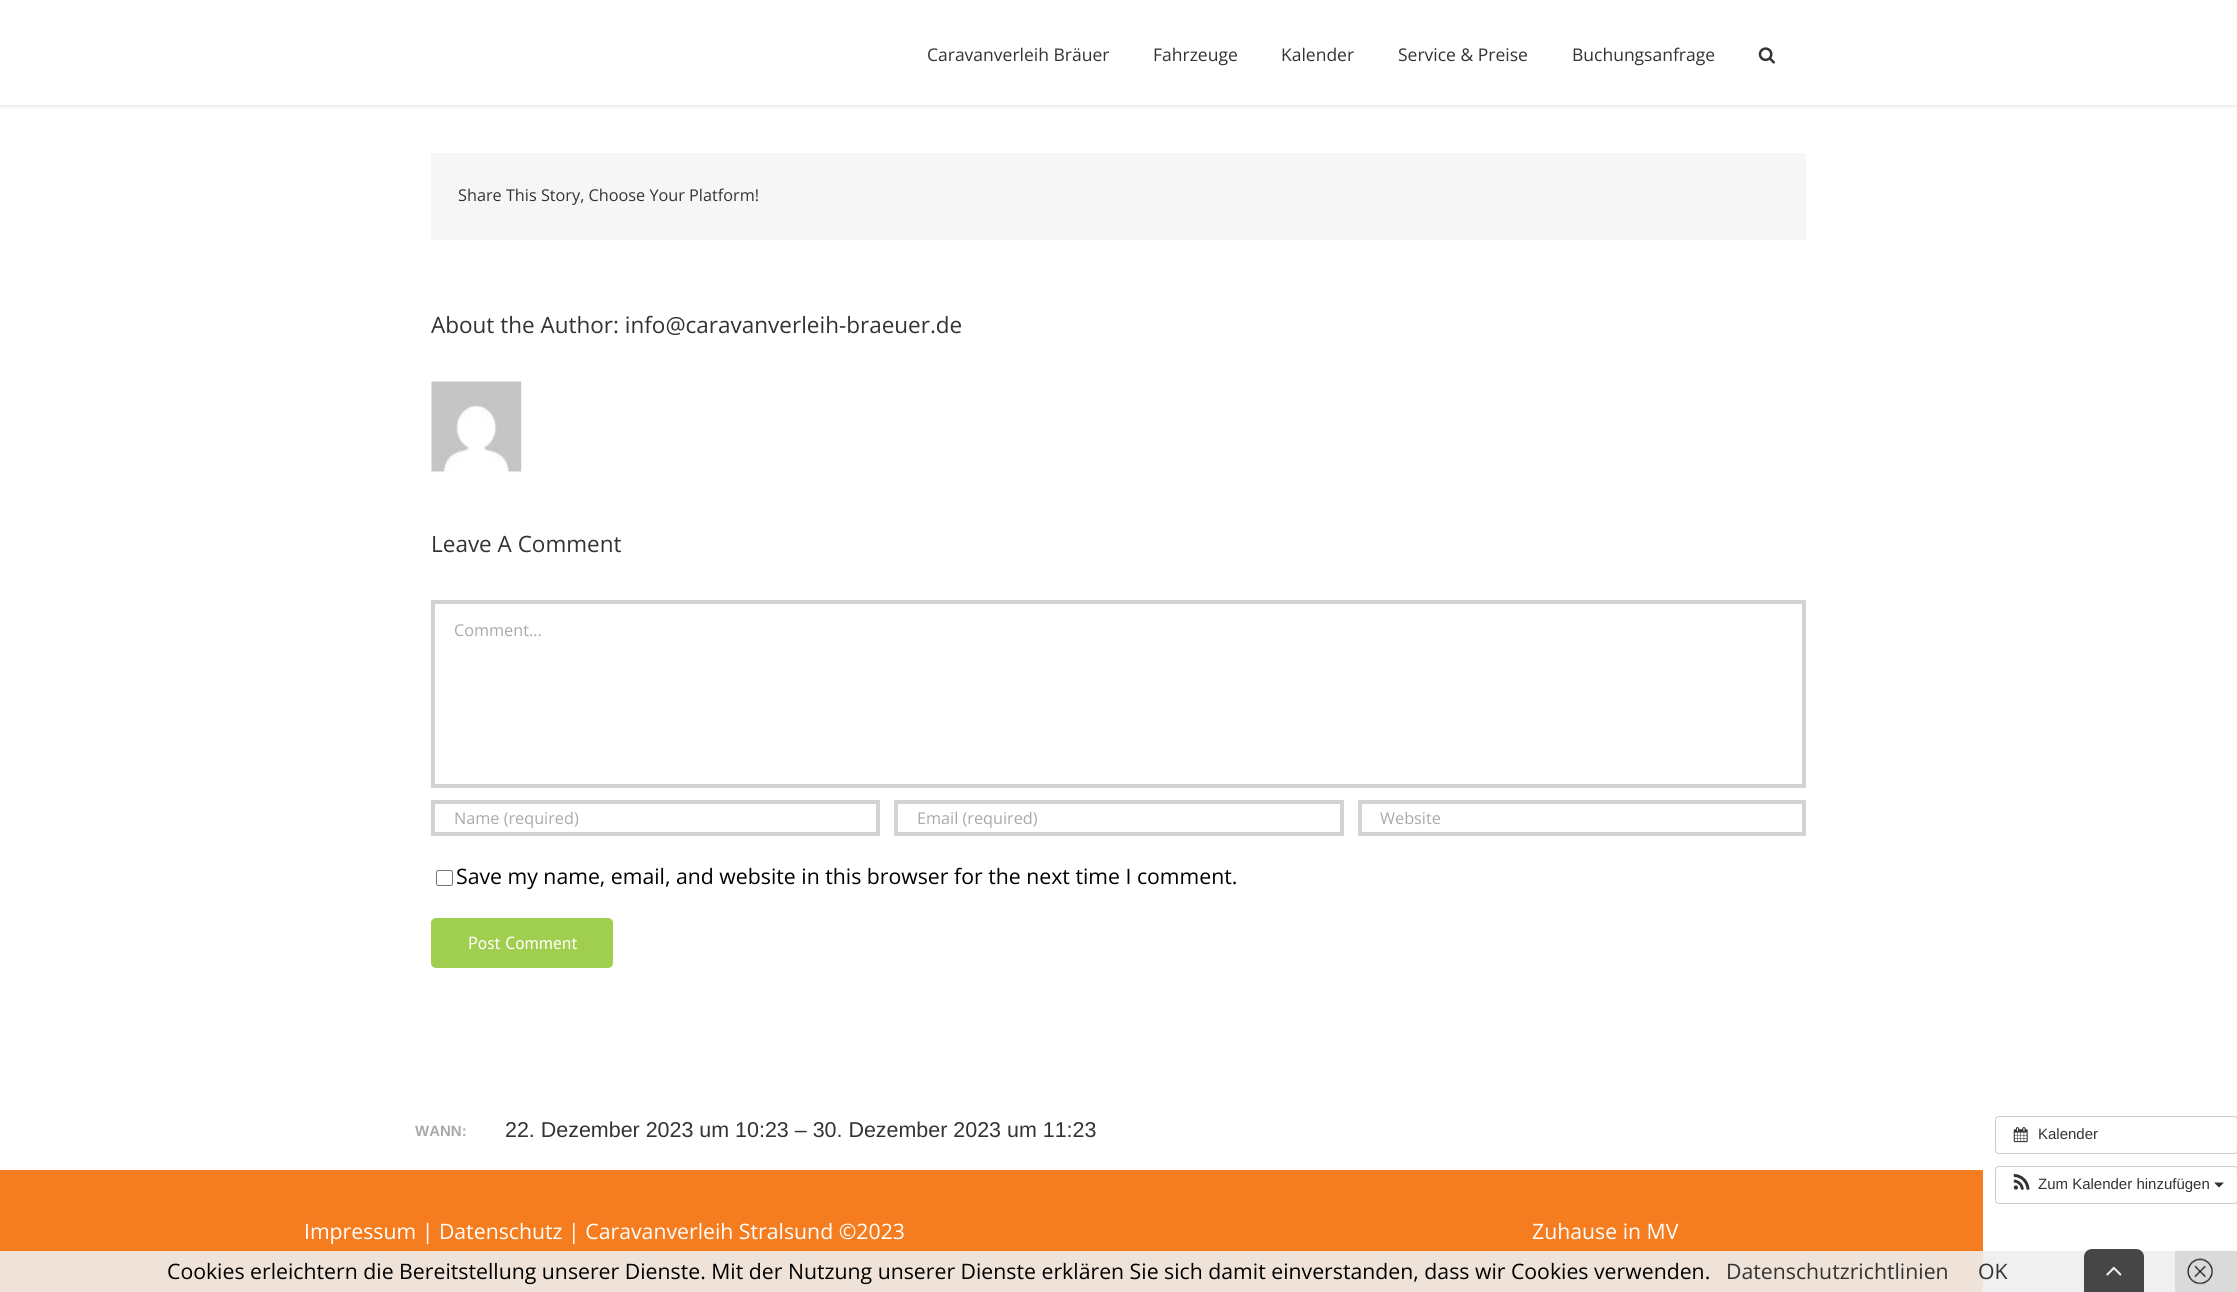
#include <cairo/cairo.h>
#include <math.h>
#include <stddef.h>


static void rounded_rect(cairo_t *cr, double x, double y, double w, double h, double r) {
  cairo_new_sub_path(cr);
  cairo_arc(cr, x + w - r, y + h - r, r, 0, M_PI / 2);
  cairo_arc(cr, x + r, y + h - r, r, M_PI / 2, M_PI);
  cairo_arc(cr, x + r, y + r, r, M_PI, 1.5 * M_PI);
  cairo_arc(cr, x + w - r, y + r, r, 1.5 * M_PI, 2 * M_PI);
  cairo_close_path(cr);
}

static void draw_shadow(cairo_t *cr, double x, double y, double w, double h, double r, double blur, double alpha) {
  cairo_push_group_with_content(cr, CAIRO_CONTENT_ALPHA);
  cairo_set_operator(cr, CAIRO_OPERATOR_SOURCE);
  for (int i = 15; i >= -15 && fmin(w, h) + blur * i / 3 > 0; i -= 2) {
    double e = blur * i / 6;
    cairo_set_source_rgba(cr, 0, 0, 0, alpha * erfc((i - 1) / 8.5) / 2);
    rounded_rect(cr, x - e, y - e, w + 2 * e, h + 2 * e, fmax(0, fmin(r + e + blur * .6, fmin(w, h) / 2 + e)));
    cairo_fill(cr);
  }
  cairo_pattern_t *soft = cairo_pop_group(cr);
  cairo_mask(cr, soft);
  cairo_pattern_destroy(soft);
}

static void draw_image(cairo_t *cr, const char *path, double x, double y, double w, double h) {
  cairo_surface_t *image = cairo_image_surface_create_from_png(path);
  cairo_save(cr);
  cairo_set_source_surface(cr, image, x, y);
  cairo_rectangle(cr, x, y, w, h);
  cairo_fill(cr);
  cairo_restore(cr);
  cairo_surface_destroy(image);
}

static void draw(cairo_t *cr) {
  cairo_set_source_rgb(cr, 1, 1, 1);
  cairo_paint(cr);
  cairo_set_source_rgb(cr, 240 / 255.0, 240 / 255.0, 240 / 255.0);
  cairo_rectangle(cr, 1983, 1251, 192, 41);
  cairo_fill(cr);
  cairo_set_source_rgb(cr, 0, 0, 0);
  draw_shadow(cr, 0, 1, 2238, 105, 0, 2, 0.12);
  cairo_set_source_rgb(cr, 1, 1, 1);
  cairo_rectangle(cr, 0, 0, 2237, 105);
  cairo_fill(cr);
  draw_image(cr, "images/1.png", 1758, 47, 17, 17);
  cairo_set_source_rgb(cr, 246 / 255.0, 246 / 255.0, 246 / 255.0);
  cairo_rectangle(cr, 431, 153, 1375, 87);
  cairo_fill(cr);
  draw_image(cr, "images/2.png", 431, 381, 91, 91);
  cairo_rectangle(cr, 433, 602, 1371, 184);
  cairo_set_source_rgb(cr, 210 / 255.0, 210 / 255.0, 210 / 255.0);
  cairo_set_line_width(cr, 4);
  cairo_stroke(cr);
  cairo_rectangle(cr, 433, 802, 445, 32);
  cairo_stroke(cr);
  cairo_rectangle(cr, 896, 802, 446, 32);
  cairo_stroke(cr);
  cairo_rectangle(cr, 1360, 802, 444, 32);
  cairo_stroke(cr);
  rounded_rect(cr, 436.5, 870.5, 16, 15, 2);
  cairo_set_source_rgb(cr, 118 / 255.0, 118 / 255.0, 118 / 255.0);
  cairo_set_line_width(cr, 1);
  cairo_stroke(cr);
  cairo_set_source_rgb(cr, 160 / 255.0, 206 / 255.0, 78 / 255.0);
  rounded_rect(cr, 431, 918, 182, 50, 5);
  cairo_fill(cr);
  rounded_rect(cr, 1995.5, 1116.5, 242, 37, 3.5);
  cairo_set_source_rgb(cr, 204 / 255.0, 204 / 255.0, 204 / 255.0);
  cairo_stroke(cr);
  draw_image(cr, "images/3.png", 2013, 1127, 15, 16);
  rounded_rect(cr, 1995.5, 1166.5, 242, 37, 3.5);
  cairo_stroke(cr);
  draw_image(cr, "images/4.png", 2013, 1174, 17, 16);
  cairo_set_source_rgb(cr, 51 / 255.0, 51 / 255.0, 51 / 255.0);
  cairo_new_path(cr);
  cairo_move_to(cr, 2214, 1182.5);
  cairo_line_to(cr, 2224, 1182.5);
  cairo_line_to(cr, 2219, 1187.5);
  cairo_close_path(cr);
  cairo_fill(cr);
  cairo_set_source_rgb(cr, 245 / 255.0, 125 / 255.0, 32 / 255.0);
  cairo_rectangle(cr, 0, 1170, 1983, 81);
  cairo_fill(cr);
  cairo_set_source_rgb(cr, 239 / 255.0, 227 / 255.0, 217 / 255.0);
  cairo_rectangle(cr, 0, 1251, 1983, 41);
  cairo_fill(cr);
  cairo_set_source_rgb(cr, 218 / 255.0, 218 / 255.0, 218 / 255.0);
  cairo_rectangle(cr, 2175, 1251, 62, 41);
  cairo_fill(cr);
  draw_image(cr, "images/5.png", 2187, 1258, 26, 27);
  cairo_set_source_rgba(cr, 51 / 255.0, 51 / 255.0, 51 / 255.0, 0.9);
  cairo_new_path(cr);
  cairo_move_to(cr, 2092, 1249);
  cairo_line_to(cr, 2136, 1249);
  cairo_curve_to(cr, 2140.5, 1249, 2144, 1252.5, 2144, 1257);
  cairo_line_to(cr, 2144, 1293);
  cairo_line_to(cr, 2084, 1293);
  cairo_line_to(cr, 2084, 1257);
  cairo_curve_to(cr, 2084, 1252.5, 2087.5, 1249, 2092, 1249);
  cairo_close_path(cr);
  cairo_fill(cr);
  draw_image(cr, "images/6.png", 2106, 1266, 16, 10);
  cairo_select_font_face(cr, "Open Sans", CAIRO_FONT_SLANT_NORMAL, CAIRO_FONT_WEIGHT_NORMAL);
  cairo_set_font_size(cr, 17.5);
  cairo_set_source_rgb(cr, 51 / 255.0, 51 / 255.0, 51 / 255.0);
  cairo_move_to(cr, 927, 61);
  cairo_show_text(cr, "Caravanverleih Bräuer");
  cairo_move_to(cr, 1153, 61);
  cairo_show_text(cr, "Fahrzeuge");
  cairo_move_to(cr, 1281, 61);
  cairo_show_text(cr, "Kalender");
  cairo_move_to(cr, 1398, 61);
  cairo_show_text(cr, "Service & Preise");
  cairo_move_to(cr, 1572, 61);
  cairo_show_text(cr, "Buchungsanfrage");
  cairo_set_font_size(cr, 16.25);
  cairo_move_to(cr, 458, 201);
  cairo_show_text(cr, "Share This Story, Choose Your Platform!");
  cairo_set_font_size(cr, 22.5);
  cairo_move_to(cr, 431, 333);
  cairo_show_text(cr, "About the Author: info@caravanverleih-braeuer.de");
  cairo_move_to(cr, 431, 552);
  cairo_show_text(cr, "Leave A Comment");
  cairo_set_font_size(cr, 16.25);
  cairo_set_source_rgb(cr, 170 / 255.0, 169 / 255.0, 169 / 255.0);
  cairo_move_to(cr, 454, 636);
  cairo_show_text(cr, "Comment...");
  cairo_move_to(cr, 454, 824);
  cairo_show_text(cr, "Name (required)");
  cairo_move_to(cr, 917, 824);
  cairo_show_text(cr, "Email (required)");
  cairo_move_to(cr, 1380, 824);
  cairo_show_text(cr, "Website");
  cairo_set_font_size(cr, 21.25);
  cairo_set_source_rgb(cr, 0, 0, 0);
  cairo_move_to(cr, 456, 884);
  cairo_show_text(cr, "Save my name, email, and website in this browser for the next time I comment.");
  cairo_select_font_face(cr, "PT Sans", CAIRO_FONT_SLANT_NORMAL, CAIRO_FONT_WEIGHT_NORMAL);
  cairo_set_font_size(cr, 17.5);
  cairo_set_source_rgb(cr, 1, 1, 1);
  cairo_move_to(cr, 468, 949);
  cairo_show_text(cr, "Post Comment");
  cairo_select_font_face(cr, "Liberation Sans", CAIRO_FONT_SLANT_NORMAL, CAIRO_FONT_WEIGHT_BOLD);
  cairo_set_font_size(cr, 15);
  cairo_set_source_rgb(cr, 170 / 255.0, 169 / 255.0, 169 / 255.0);
  cairo_move_to(cr, 415, 1136);
  cairo_show_text(cr, "WANN:");
  cairo_select_font_face(cr, "Liberation Sans", CAIRO_FONT_SLANT_NORMAL, CAIRO_FONT_WEIGHT_NORMAL);
  cairo_set_font_size(cr, 21.45);
  cairo_set_source_rgb(cr, 51 / 255.0, 51 / 255.0, 51 / 255.0);
  cairo_move_to(cr, 505, 1137);
  cairo_show_text(cr, "22. Dezember 2023 um 10:23 – 30. Dezember 2023 um 11:23");
  cairo_set_font_size(cr, 15);
  cairo_move_to(cr, 2038, 1139);
  cairo_show_text(cr, "Kalender");
  cairo_move_to(cr, 2038, 1189);
  cairo_show_text(cr, "Zum Kalender hinzufügen");
  cairo_select_font_face(cr, "Open Sans", CAIRO_FONT_SLANT_NORMAL, CAIRO_FONT_WEIGHT_NORMAL);
  cairo_set_font_size(cr, 21.25);
  cairo_set_source_rgb(cr, 1, 1, 1);
  cairo_move_to(cr, 304, 1239);
  cairo_show_text(cr, "Impressum | Datenschutz | Caravanverleih Stralsund ©2023");
  cairo_move_to(cr, 1532, 1239);
  cairo_show_text(cr, "Zuhause in MV");
  cairo_set_source_rgb(cr, 0, 0, 0);
  cairo_move_to(cr, 167, 1279);
  cairo_show_text(cr, "Cookies erleichtern die Bereitstellung unserer Dienste. Mit der Nutzung unserer Dienste erklären Sie sich damit einverstanden, dass wir Cookies verwenden.");
  cairo_set_source_rgb(cr, 51 / 255.0, 51 / 255.0, 51 / 255.0);
  cairo_move_to(cr, 1726, 1279);
  cairo_show_text(cr, "Datenschutzrichtlinien");
  cairo_move_to(cr, 1978, 1279);
  cairo_show_text(cr, "OK");
}

int main(void) {
  cairo_surface_t *surface = cairo_image_surface_create(CAIRO_FORMAT_RGB24, 2237, 1292);
  cairo_t *cr = cairo_create(surface);
  cairo_font_options_t *options = cairo_font_options_create();
  cairo_font_options_set_hint_metrics(options, CAIRO_HINT_METRICS_OFF);
  cairo_font_options_set_hint_style(options, CAIRO_HINT_STYLE_NONE);
  cairo_set_font_options(cr, options);
  cairo_set_miter_limit(cr, 4);
  draw(cr);
  cairo_surface_write_to_png(surface, "out.png");
  cairo_font_options_destroy(options);
  cairo_destroy(cr);
  cairo_surface_destroy(surface);
  return 0;
}
